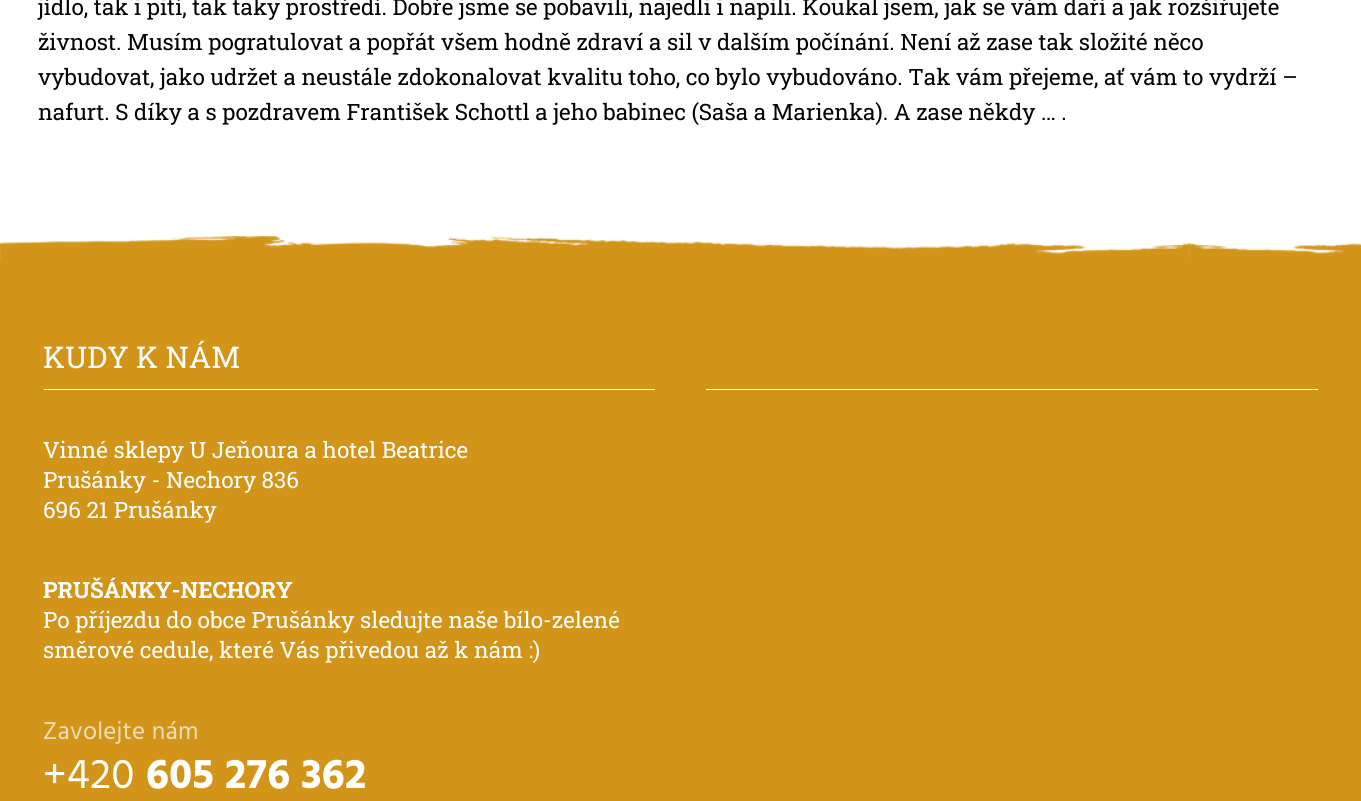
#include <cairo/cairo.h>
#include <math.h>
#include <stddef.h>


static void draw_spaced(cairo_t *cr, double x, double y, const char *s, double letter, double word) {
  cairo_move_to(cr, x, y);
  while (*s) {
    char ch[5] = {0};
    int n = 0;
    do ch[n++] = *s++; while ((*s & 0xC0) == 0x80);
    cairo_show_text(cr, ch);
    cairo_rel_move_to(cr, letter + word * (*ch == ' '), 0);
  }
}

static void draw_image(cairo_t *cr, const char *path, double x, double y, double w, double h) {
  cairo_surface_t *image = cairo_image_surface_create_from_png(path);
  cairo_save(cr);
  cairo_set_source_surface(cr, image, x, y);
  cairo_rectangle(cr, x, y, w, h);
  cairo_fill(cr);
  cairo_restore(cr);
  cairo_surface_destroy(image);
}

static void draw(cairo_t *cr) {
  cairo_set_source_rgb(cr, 1, 1, 1);
  cairo_paint(cr);
  cairo_set_source_rgb(cr, 210 / 255.0, 149 / 255.0, 26 / 255.0);
  cairo_rectangle(cr, 0, 261, 1361, 540);
  cairo_fill(cr);
  draw_image(cr, "images/1.png", 0, 236, 1361, 25);
  cairo_set_source_rgb(cr, 1, 1, 1);
  cairo_rectangle(cr, 44, 389, 611, 1);
  cairo_fill(cr);
  cairo_rectangle(cr, 706, 389, 612, 1);
  cairo_fill(cr);
  cairo_select_font_face(cr, "Roboto Slab", CAIRO_FONT_SLANT_NORMAL, CAIRO_FONT_WEIGHT_NORMAL);
  cairo_set_font_size(cr, 22.5);
  cairo_set_source_rgb(cr, 4 / 255.0, 3 / 255.0, 0);
  cairo_move_to(cr, 38, 15);
  cairo_show_text(cr, "jídlo, tak i pití, tak taky prostředí. Dobře jsme se pobavili, najedli i napili. Koukal jsem, jak se vám daří a jak rozšiřujete");
  cairo_move_to(cr, 38, 50);
  cairo_show_text(cr, "živnost. Musím pogratulovat a popřát všem hodně zdraví a sil v dalším počínání. Není až zase tak složité něco");
  cairo_move_to(cr, 38, 85);
  cairo_show_text(cr, "vybudovat, jako udržet a neustále zdokonalovat kvalitu toho, co bylo vybudováno. Tak vám přejeme, ať vám to vydrží –");
  cairo_move_to(cr, 38, 120);
  cairo_show_text(cr, "nafurt. S díky a s pozdravem František Schottl a jeho babinec (Saša a Marienka). A zase někdy … .");
  cairo_set_font_size(cr, 30);
  cairo_set_source_rgb(cr, 1, 1, 1);
  cairo_move_to(cr, 43, 368);
  cairo_show_text(cr, "KUDY K NÁM");
  cairo_set_font_size(cr, 22.5);
  cairo_move_to(cr, 43, 458);
  cairo_show_text(cr, "Vinné sklepy U Jeňoura a hotel Beatrice");
  cairo_move_to(cr, 43, 488);
  cairo_show_text(cr, "Prušánky - Nechory 836");
  cairo_move_to(cr, 43, 518);
  cairo_show_text(cr, "696 21 Prušánky");
  cairo_select_font_face(cr, "Roboto Slab", CAIRO_FONT_SLANT_NORMAL, CAIRO_FONT_WEIGHT_BOLD);
  cairo_move_to(cr, 43, 598);
  cairo_show_text(cr, "PRUŠÁNKY-NECHORY");
  cairo_select_font_face(cr, "Roboto Slab", CAIRO_FONT_SLANT_NORMAL, CAIRO_FONT_WEIGHT_NORMAL);
  cairo_move_to(cr, 43, 628);
  cairo_show_text(cr, "Po příjezdu do obce Prušánky sledujte naše bílo-zelené");
  cairo_move_to(cr, 43, 658);
  cairo_show_text(cr, "směrové cedule, které Vás přivedou až k nám :)");
  cairo_select_font_face(cr, "Hind Madurai", CAIRO_FONT_SLANT_NORMAL, CAIRO_FONT_WEIGHT_NORMAL);
  cairo_set_font_size(cr, 25);
  cairo_set_source_rgb(cr, 242 / 255.0, 223 / 255.0, 186 / 255.0);
  draw_spaced(cr, 43, 739, "Zavolejte nám", 0.25, 0);
  cairo_set_font_size(cr, 42.5);
  cairo_set_source_rgb(cr, 1, 1, 1);
  draw_spaced(cr, 43, 788, "+420", 0.25, 0);
  cairo_select_font_face(cr, "Hind Madurai", CAIRO_FONT_SLANT_NORMAL, CAIRO_FONT_WEIGHT_BOLD);
  draw_spaced(cr, 146, 788, "605 276 362", 0.25, 0);
}

int main(void) {
  cairo_surface_t *surface = cairo_image_surface_create(CAIRO_FORMAT_RGB24, 1361, 801);
  cairo_t *cr = cairo_create(surface);
  cairo_font_options_t *options = cairo_font_options_create();
  cairo_font_options_set_hint_metrics(options, CAIRO_HINT_METRICS_OFF);
  cairo_font_options_set_hint_style(options, CAIRO_HINT_STYLE_NONE);
  cairo_set_font_options(cr, options);
  cairo_set_miter_limit(cr, 4);
  draw(cr);
  cairo_surface_write_to_png(surface, "out.png");
  cairo_font_options_destroy(options);
  cairo_destroy(cr);
  cairo_surface_destroy(surface);
  return 0;
}
